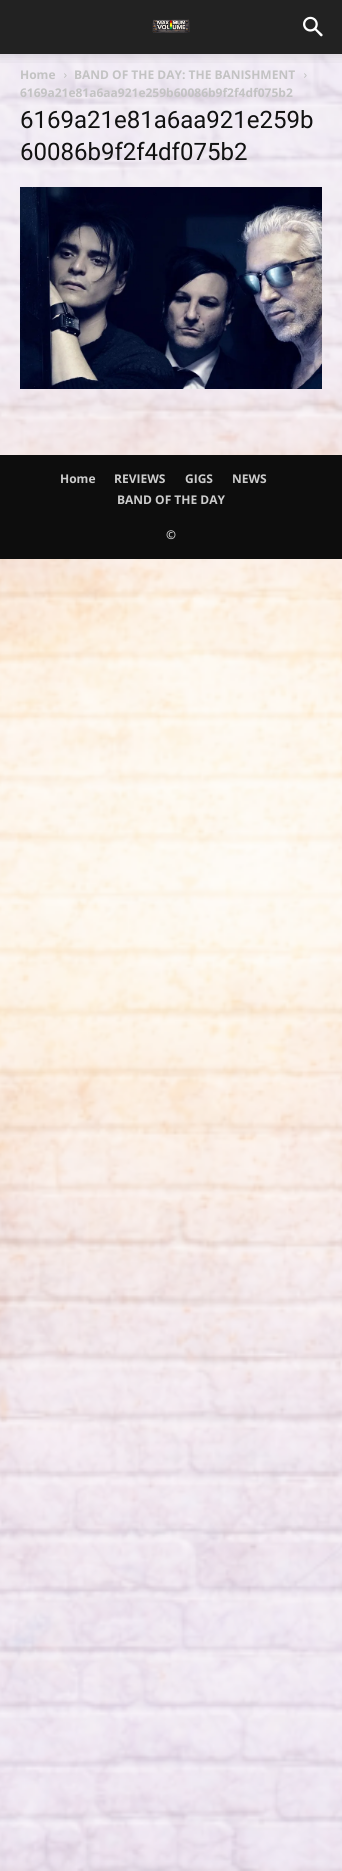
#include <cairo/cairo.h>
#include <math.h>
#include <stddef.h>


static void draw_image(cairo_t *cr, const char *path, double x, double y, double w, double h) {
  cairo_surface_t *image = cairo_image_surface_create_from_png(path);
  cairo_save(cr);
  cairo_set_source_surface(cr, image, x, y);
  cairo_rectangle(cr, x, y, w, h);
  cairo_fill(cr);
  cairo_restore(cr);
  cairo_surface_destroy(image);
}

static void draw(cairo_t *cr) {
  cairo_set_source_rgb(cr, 1, 1, 1);
  cairo_paint(cr);
  draw_image(cr, "images/1.png", 0, 54, 342, 1817);
  cairo_set_source_rgb(cr, 34 / 255.0, 34 / 255.0, 34 / 255.0);
  cairo_rectangle(cr, 0, 0, 342, 54);
  cairo_fill(cr);
  draw_image(cr, "images/2.png", 152, 19, 38, 14);
  draw_image(cr, "images/3.png", 303, 16, 20, 21);
  draw_image(cr, "images/4.png", 0, 54, 342, 9);
  draw_image(cr, "images/5.png", 64, 73, 3, 5);
  draw_image(cr, "images/6.png", 304, 73, 3, 5);
  draw_image(cr, "images/7.png", 20, 187, 302, 202);
  cairo_set_source_rgb(cr, 13 / 255.0, 13 / 255.0, 13 / 255.0);
  cairo_rectangle(cr, 0, 455, 342, 104);
  cairo_fill(cr);
  cairo_select_font_face(cr, "Open Sans", CAIRO_FONT_SLANT_NORMAL, CAIRO_FONT_WEIGHT_BOLD);
  cairo_set_font_size(cr, 12);
  cairo_set_source_rgb(cr, 195 / 255.0, 195 / 255.0, 195 / 255.0);
  cairo_move_to(cr, 20, 79);
  cairo_show_text(cr, "Home");
  cairo_move_to(cr, 74, 79);
  cairo_show_text(cr, "BAND OF THE DAY: THE BANISHMENT");
  cairo_move_to(cr, 20, 97);
  cairo_show_text(cr, "6169a21e81a6aa921e259b60086b9f2f4df075b2");
  cairo_select_font_face(cr, "Roboto", CAIRO_FONT_SLANT_NORMAL, CAIRO_FONT_WEIGHT_NORMAL);
  cairo_set_font_size(cr, 24);
  cairo_set_source_rgb(cr, 17 / 255.0, 17 / 255.0, 17 / 255.0);
  cairo_move_to(cr, 20, 128);
  cairo_show_text(cr, "6169a21e81a6aa921e259b");
  cairo_move_to(cr, 20, 160);
  cairo_show_text(cr, "60086b9f2f4df075b2");
  cairo_select_font_face(cr, "Open Sans", CAIRO_FONT_SLANT_NORMAL, CAIRO_FONT_WEIGHT_BOLD);
  cairo_set_font_size(cr, 12);
  cairo_set_source_rgb(cr, 204 / 255.0, 204 / 255.0, 204 / 255.0);
  cairo_move_to(cr, 60, 483);
  cairo_show_text(cr, "Home");
  cairo_move_to(cr, 114, 483);
  cairo_show_text(cr, "REVIEWS");
  cairo_move_to(cr, 185, 483);
  cairo_show_text(cr, "GIGS");
  cairo_move_to(cr, 232, 483);
  cairo_show_text(cr, "NEWS");
  cairo_move_to(cr, 117, 504);
  cairo_show_text(cr, "BAND OF THE DAY");
  cairo_move_to(cr, 166, 539);
  cairo_show_text(cr, "©");
}

int main(void) {
  cairo_surface_t *surface = cairo_image_surface_create(CAIRO_FORMAT_RGB24, 342, 1871);
  cairo_t *cr = cairo_create(surface);
  cairo_font_options_t *options = cairo_font_options_create();
  cairo_font_options_set_hint_metrics(options, CAIRO_HINT_METRICS_OFF);
  cairo_font_options_set_hint_style(options, CAIRO_HINT_STYLE_NONE);
  cairo_set_font_options(cr, options);
  cairo_set_miter_limit(cr, 4);
  draw(cr);
  cairo_surface_write_to_png(surface, "out.png");
  cairo_font_options_destroy(options);
  cairo_destroy(cr);
  cairo_surface_destroy(surface);
  return 0;
}
